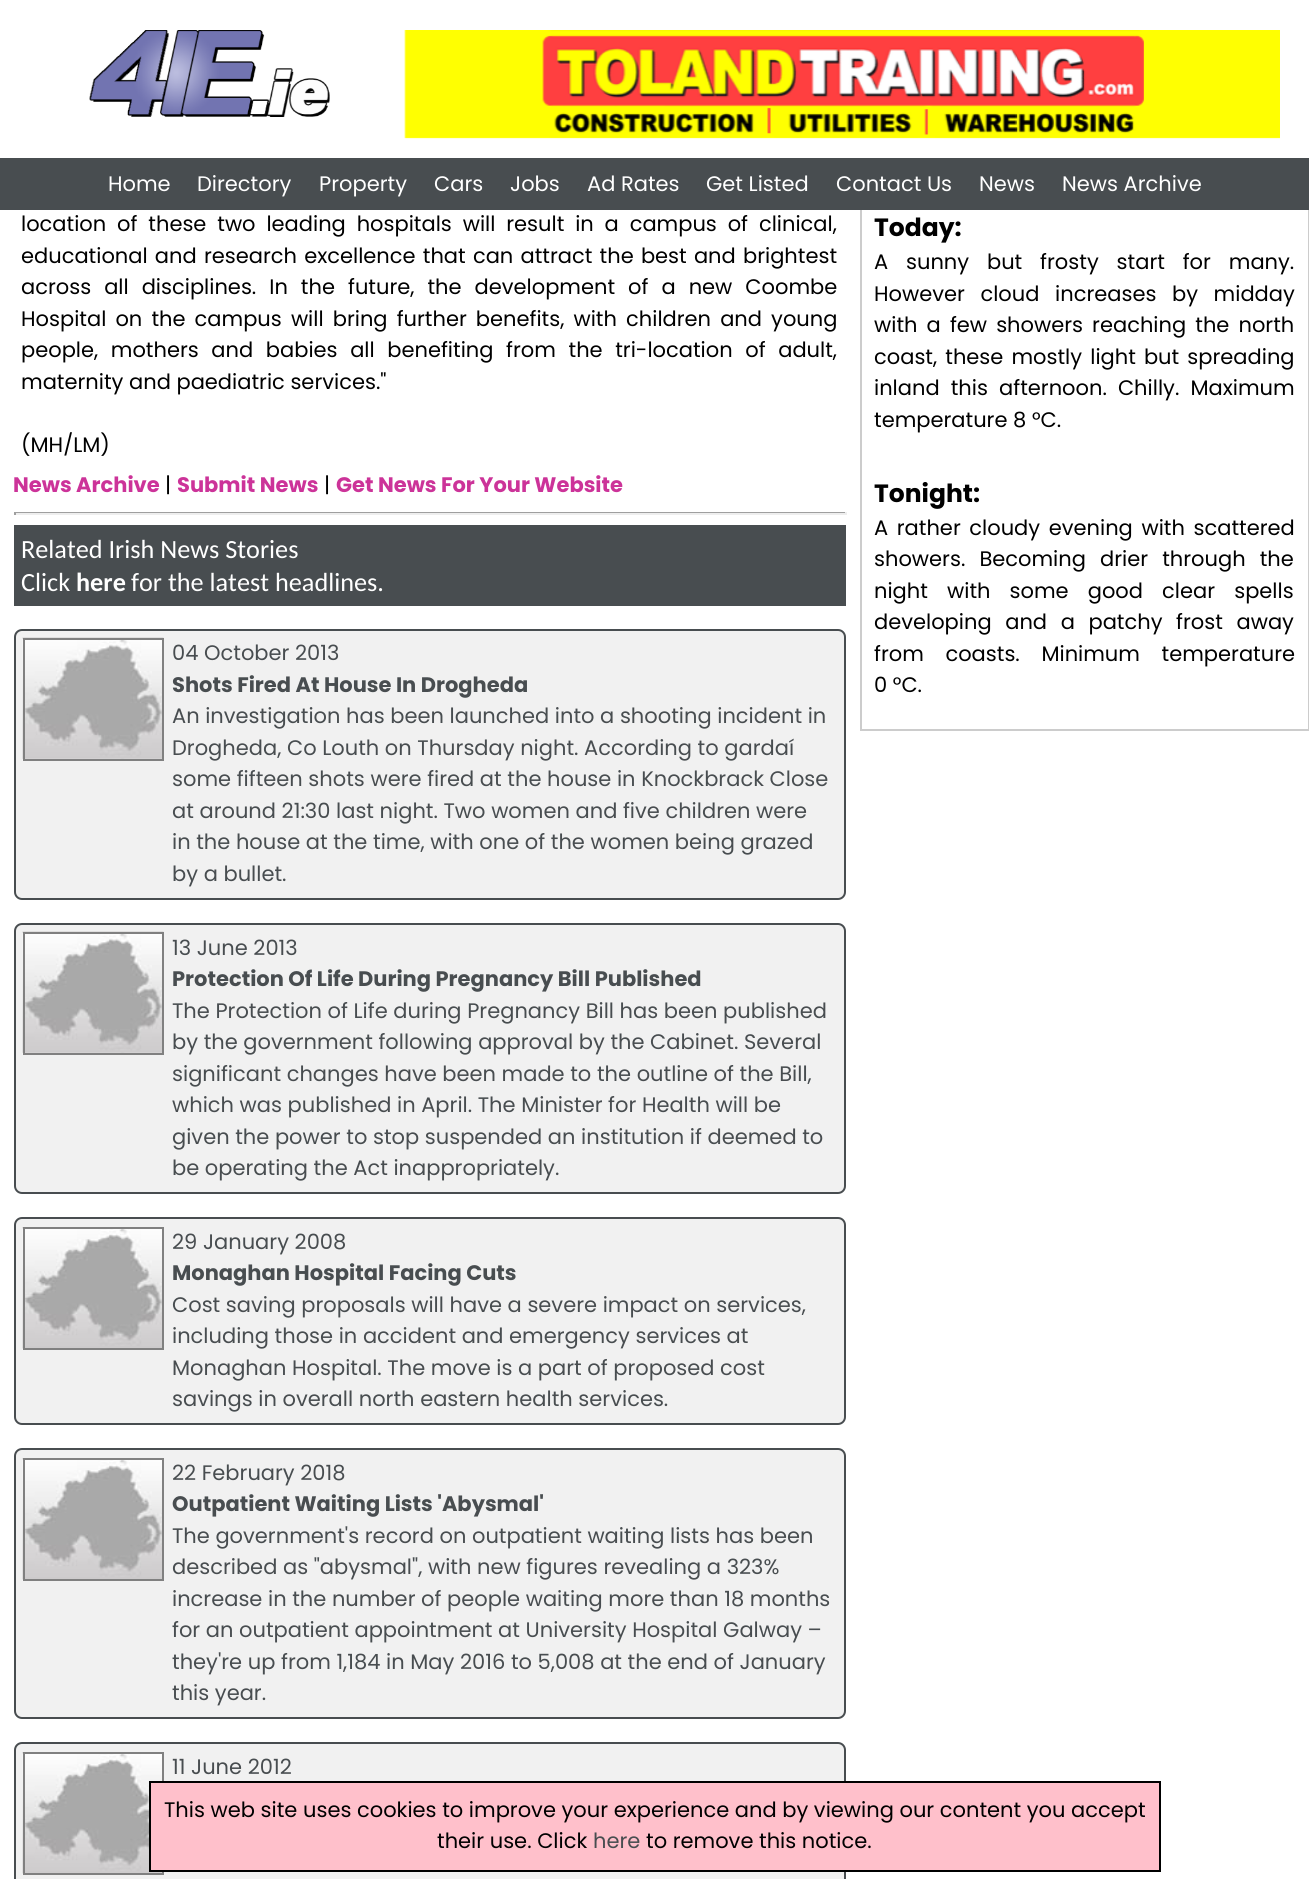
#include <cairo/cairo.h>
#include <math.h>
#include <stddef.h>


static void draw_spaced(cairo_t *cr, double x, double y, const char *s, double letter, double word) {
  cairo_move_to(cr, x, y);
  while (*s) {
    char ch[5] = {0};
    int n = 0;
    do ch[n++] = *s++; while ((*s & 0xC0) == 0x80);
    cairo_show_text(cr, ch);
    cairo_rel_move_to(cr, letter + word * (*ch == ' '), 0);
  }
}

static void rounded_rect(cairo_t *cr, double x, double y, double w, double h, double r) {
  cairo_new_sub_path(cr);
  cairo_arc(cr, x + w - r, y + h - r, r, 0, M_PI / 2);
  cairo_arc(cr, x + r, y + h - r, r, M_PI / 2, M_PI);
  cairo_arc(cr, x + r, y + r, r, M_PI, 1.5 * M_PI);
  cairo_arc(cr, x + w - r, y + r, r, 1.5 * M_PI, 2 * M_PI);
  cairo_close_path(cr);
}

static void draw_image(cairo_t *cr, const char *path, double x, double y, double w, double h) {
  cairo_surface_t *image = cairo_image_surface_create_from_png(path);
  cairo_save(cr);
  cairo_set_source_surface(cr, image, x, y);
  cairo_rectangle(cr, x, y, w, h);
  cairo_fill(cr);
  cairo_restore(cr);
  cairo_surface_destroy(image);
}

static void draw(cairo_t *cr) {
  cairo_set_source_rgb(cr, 1, 1, 1);
  cairo_paint(cr);
  cairo_rectangle(cr, 861, 145, 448, 585);
  cairo_set_source_rgb(cr, 204 / 255.0, 204 / 255.0, 204 / 255.0);
  cairo_stroke(cr);
  cairo_set_source_rgb(cr, 1, 1, 1);
  cairo_rectangle(cr, 860, 144, 449, 14);
  cairo_fill(cr);
  draw_image(cr, "images/1.png", 89, 30, 241, 87);
  draw_image(cr, "images/2.png", 404, 30, 876, 109);
  cairo_set_source_rgb(cr, 72 / 255.0, 77 / 255.0, 80 / 255.0);
  cairo_rectangle(cr, 0, 158, 1309, 52);
  cairo_fill(cr);
  cairo_set_source_rgb(cr, 159 / 255.0, 159 / 255.0, 159 / 255.0);
  cairo_rectangle(cr, 14, 512, 832, 1);
  cairo_fill(cr);
  cairo_set_source_rgb(cr, 238 / 255.0, 238 / 255.0, 238 / 255.0);
  cairo_rectangle(cr, 845, 512, 2, 3);
  cairo_fill(cr);
  cairo_rectangle(cr, 14, 513, 832, 2);
  cairo_fill(cr);
  cairo_set_source_rgb(cr, 159 / 255.0, 159 / 255.0, 159 / 255.0);
  cairo_rectangle(cr, 14, 512, 2, 3);
  cairo_fill(cr);
  cairo_set_source_rgb(cr, 72 / 255.0, 77 / 255.0, 80 / 255.0);
  cairo_rectangle(cr, 14, 525, 832, 81);
  cairo_fill(cr);
  cairo_set_source_rgb(cr, 241 / 255.0, 241 / 255.0, 241 / 255.0);
  rounded_rect(cr, 15, 630, 830, 269, 7);
  cairo_fill_preserve(cr);
  cairo_set_source_rgb(cr, 72 / 255.0, 77 / 255.0, 80 / 255.0);
  cairo_stroke(cr);
  draw_image(cr, "images/3.png", 22, 637, 142, 124);
  cairo_rectangle(cr, 24, 639, 139, 121);
  cairo_set_source_rgb(cr, 128 / 255.0, 128 / 255.0, 128 / 255.0);
  cairo_stroke(cr);
  cairo_set_source_rgb(cr, 241 / 255.0, 241 / 255.0, 241 / 255.0);
  rounded_rect(cr, 15, 924, 830, 269, 7);
  cairo_fill_preserve(cr);
  cairo_set_source_rgb(cr, 72 / 255.0, 77 / 255.0, 80 / 255.0);
  cairo_stroke(cr);
  draw_image(cr, "images/3.png", 22, 931, 142, 124);
  cairo_rectangle(cr, 24, 933, 139, 121);
  cairo_set_source_rgb(cr, 128 / 255.0, 128 / 255.0, 128 / 255.0);
  cairo_stroke(cr);
  cairo_set_source_rgb(cr, 241 / 255.0, 241 / 255.0, 241 / 255.0);
  rounded_rect(cr, 15, 1218, 830, 206, 7);
  cairo_fill_preserve(cr);
  cairo_set_source_rgb(cr, 72 / 255.0, 77 / 255.0, 80 / 255.0);
  cairo_stroke(cr);
  draw_image(cr, "images/4.png", 22, 1227, 140, 123);
  cairo_rectangle(cr, 24, 1228, 139, 121);
  cairo_set_source_rgb(cr, 128 / 255.0, 128 / 255.0, 128 / 255.0);
  cairo_stroke(cr);
  cairo_set_source_rgb(cr, 241 / 255.0, 241 / 255.0, 241 / 255.0);
  rounded_rect(cr, 15, 1449, 830, 269, 7);
  cairo_fill_preserve(cr);
  cairo_set_source_rgb(cr, 72 / 255.0, 77 / 255.0, 80 / 255.0);
  cairo_stroke(cr);
  draw_image(cr, "images/4.png", 22, 1458, 140, 123);
  cairo_rectangle(cr, 24, 1459, 139, 121);
  cairo_set_source_rgb(cr, 128 / 255.0, 128 / 255.0, 128 / 255.0);
  cairo_stroke(cr);
  cairo_set_source_rgb(cr, 241 / 255.0, 241 / 255.0, 241 / 255.0);
  rounded_rect(cr, 15, 1743, 830, 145, 7);
  cairo_fill_preserve(cr);
  cairo_set_source_rgb(cr, 72 / 255.0, 77 / 255.0, 80 / 255.0);
  cairo_stroke(cr);
  draw_image(cr, "images/4.png", 22, 1752, 140, 123);
  cairo_rectangle(cr, 24, 1753, 139, 121);
  cairo_set_source_rgb(cr, 128 / 255.0, 128 / 255.0, 128 / 255.0);
  cairo_stroke(cr);
  cairo_set_source_rgb(cr, 1, 192 / 255.0, 203 / 255.0);
  cairo_rectangle(cr, 150, 1782, 1010, 89);
  cairo_fill_preserve(cr);
  cairo_set_source_rgb(cr, 0, 0, 0);
  cairo_stroke(cr);
  cairo_select_font_face(cr, "Poppins", CAIRO_FONT_SLANT_NORMAL, CAIRO_FONT_WEIGHT_NORMAL);
  cairo_set_font_size(cr, 21);
  cairo_set_source_rgb(cr, 1, 1, 1);
  cairo_move_to(cr, 108, 191);
  cairo_show_text(cr, "Home");
  cairo_move_to(cr, 197, 191);
  cairo_show_text(cr, "Directory");
  cairo_move_to(cr, 319, 191);
  cairo_show_text(cr, "Property");
  cairo_move_to(cr, 434, 191);
  cairo_show_text(cr, "Cars");
  cairo_move_to(cr, 510, 191);
  cairo_show_text(cr, "Jobs");
  cairo_move_to(cr, 587, 191);
  cairo_show_text(cr, "Ad Rates");
  cairo_move_to(cr, 706, 191);
  cairo_show_text(cr, "Get Listed");
  cairo_move_to(cr, 836, 191);
  cairo_show_text(cr, "Contact Us");
  cairo_move_to(cr, 979, 191);
  cairo_show_text(cr, "News");
  cairo_move_to(cr, 1062, 191);
  cairo_show_text(cr, "News Archive");
  cairo_set_source_rgb(cr, 0, 0, 0);
  draw_spaced(cr, 21, 231, "location of these two leading hospitals will result in a campus of clinical,", 0, 5.25);
  draw_spaced(cr, 21, 263, "educational and research excellence that can attract the best and brightest", 0, 1.6);
  draw_spaced(cr, 21, 294, "across all disciplines. In the future, the development of a new Coombe", 0, 7.4);
  draw_spaced(cr, 21, 326, "Hospital on the campus will bring further benefits, with children and young", 0, 3.5);
  draw_spaced(cr, 21, 357, "people, mothers and babies all benefiting from the tri-location of adult,", 0, 7);
  cairo_move_to(cr, 21, 389);
  cairo_show_text(cr, "maternity and paediatric services.\"");
  cairo_move_to(cr, 21, 452);
  cairo_show_text(cr, "(MH/LM)");
  cairo_select_font_face(cr, "Poppins", CAIRO_FONT_SLANT_NORMAL, CAIRO_FONT_WEIGHT_BOLD);
  cairo_set_source_rgb(cr, 204 / 255.0, 51 / 255.0, 153 / 255.0);
  cairo_move_to(cr, 13, 492);
  cairo_show_text(cr, "News Archive");
  cairo_select_font_face(cr, "Poppins", CAIRO_FONT_SLANT_NORMAL, CAIRO_FONT_WEIGHT_NORMAL);
  cairo_set_source_rgb(cr, 0, 0, 0);
  cairo_move_to(cr, 165, 492);
  cairo_show_text(cr, "|");
  cairo_select_font_face(cr, "Poppins", CAIRO_FONT_SLANT_NORMAL, CAIRO_FONT_WEIGHT_BOLD);
  cairo_set_source_rgb(cr, 204 / 255.0, 51 / 255.0, 153 / 255.0);
  cairo_move_to(cr, 177, 492);
  cairo_show_text(cr, "Submit News");
  cairo_select_font_face(cr, "Poppins", CAIRO_FONT_SLANT_NORMAL, CAIRO_FONT_WEIGHT_NORMAL);
  cairo_set_source_rgb(cr, 0, 0, 0);
  cairo_move_to(cr, 324, 492);
  cairo_show_text(cr, "|");
  cairo_select_font_face(cr, "Poppins", CAIRO_FONT_SLANT_NORMAL, CAIRO_FONT_WEIGHT_BOLD);
  cairo_set_source_rgb(cr, 204 / 255.0, 51 / 255.0, 153 / 255.0);
  cairo_move_to(cr, 336, 492);
  cairo_show_text(cr, "Get News For Your Website");
  cairo_select_font_face(cr, "Carlito", CAIRO_FONT_SLANT_NORMAL, CAIRO_FONT_WEIGHT_NORMAL);
  cairo_set_font_size(cr, 26.25);
  cairo_set_source_rgb(cr, 1, 1, 1);
  cairo_move_to(cr, 21, 558);
  cairo_show_text(cr, "Related Irish News Stories");
  cairo_move_to(cr, 21, 591);
  cairo_show_text(cr, "Click");
  cairo_select_font_face(cr, "Carlito", CAIRO_FONT_SLANT_NORMAL, CAIRO_FONT_WEIGHT_BOLD);
  cairo_move_to(cr, 76, 591);
  cairo_show_text(cr, "here");
  cairo_select_font_face(cr, "Carlito", CAIRO_FONT_SLANT_NORMAL, CAIRO_FONT_WEIGHT_NORMAL);
  cairo_move_to(cr, 131, 591);
  cairo_show_text(cr, "for the latest headlines.");
  cairo_select_font_face(cr, "Poppins", CAIRO_FONT_SLANT_NORMAL, CAIRO_FONT_WEIGHT_NORMAL);
  cairo_set_font_size(cr, 21);
  cairo_set_source_rgb(cr, 72 / 255.0, 77 / 255.0, 80 / 255.0);
  cairo_move_to(cr, 172, 660);
  cairo_show_text(cr, "04 October 2013");
  cairo_select_font_face(cr, "Poppins", CAIRO_FONT_SLANT_NORMAL, CAIRO_FONT_WEIGHT_BOLD);
  cairo_move_to(cr, 172, 692);
  cairo_show_text(cr, "Shots Fired At House In Drogheda");
  cairo_select_font_face(cr, "Poppins", CAIRO_FONT_SLANT_NORMAL, CAIRO_FONT_WEIGHT_NORMAL);
  cairo_move_to(cr, 172, 723);
  cairo_show_text(cr, "An investigation has been launched into a shooting incident in");
  cairo_move_to(cr, 172, 755);
  cairo_show_text(cr, "Drogheda, Co Louth on Thursday night. According to gardaí");
  cairo_move_to(cr, 172, 786);
  cairo_show_text(cr, "some fifteen shots were fired at the house in Knockbrack Close");
  cairo_move_to(cr, 172, 818);
  cairo_show_text(cr, "at around 21:30 last night. Two women and five children were");
  cairo_move_to(cr, 172, 849);
  cairo_show_text(cr, "in the house at the time, with one of the women being grazed");
  cairo_move_to(cr, 172, 881);
  cairo_show_text(cr, "by a bullet.");
  cairo_move_to(cr, 172, 955);
  cairo_show_text(cr, "13 June 2013");
  cairo_select_font_face(cr, "Poppins", CAIRO_FONT_SLANT_NORMAL, CAIRO_FONT_WEIGHT_BOLD);
  cairo_move_to(cr, 172, 986);
  cairo_show_text(cr, "Protection Of Life During Pregnancy Bill Published");
  cairo_select_font_face(cr, "Poppins", CAIRO_FONT_SLANT_NORMAL, CAIRO_FONT_WEIGHT_NORMAL);
  cairo_move_to(cr, 172, 1018);
  cairo_show_text(cr, "The Protection of Life during Pregnancy Bill has been published");
  cairo_move_to(cr, 172, 1049);
  cairo_show_text(cr, "by the government following approval by the Cabinet. Several");
  cairo_move_to(cr, 172, 1081);
  cairo_show_text(cr, "significant changes have been made to the outline of the Bill,");
  cairo_move_to(cr, 172, 1112);
  cairo_show_text(cr, "which was published in April. The Minister for Health will be");
  cairo_move_to(cr, 172, 1144);
  cairo_show_text(cr, "given the power to stop suspended an institution if deemed to");
  cairo_move_to(cr, 172, 1175);
  cairo_show_text(cr, "be operating the Act inappropriately.");
  cairo_move_to(cr, 172, 1249);
  cairo_show_text(cr, "29 January 2008");
  cairo_select_font_face(cr, "Poppins", CAIRO_FONT_SLANT_NORMAL, CAIRO_FONT_WEIGHT_BOLD);
  cairo_move_to(cr, 172, 1280);
  cairo_show_text(cr, "Monaghan Hospital Facing Cuts");
  cairo_select_font_face(cr, "Poppins", CAIRO_FONT_SLANT_NORMAL, CAIRO_FONT_WEIGHT_NORMAL);
  cairo_move_to(cr, 172, 1312);
  cairo_show_text(cr, "Cost saving proposals will have a severe impact on services,");
  cairo_move_to(cr, 172, 1343);
  cairo_show_text(cr, "including those in accident and emergency services at");
  cairo_move_to(cr, 172, 1375);
  cairo_show_text(cr, "Monaghan Hospital. The move is a part of proposed cost");
  cairo_move_to(cr, 172, 1406);
  cairo_show_text(cr, "savings in overall north eastern health services.");
  cairo_move_to(cr, 172, 1480);
  cairo_show_text(cr, "22 February 2018");
  cairo_select_font_face(cr, "Poppins", CAIRO_FONT_SLANT_NORMAL, CAIRO_FONT_WEIGHT_BOLD);
  cairo_move_to(cr, 172, 1511);
  cairo_show_text(cr, "Outpatient Waiting Lists 'Abysmal'");
  cairo_select_font_face(cr, "Poppins", CAIRO_FONT_SLANT_NORMAL, CAIRO_FONT_WEIGHT_NORMAL);
  cairo_move_to(cr, 172, 1543);
  cairo_show_text(cr, "The government's record on outpatient waiting lists has been");
  cairo_move_to(cr, 172, 1574);
  cairo_show_text(cr, "described as \"abysmal\", with new figures revealing a 323%");
  cairo_move_to(cr, 172, 1606);
  cairo_show_text(cr, "increase in the number of people waiting more than 18 months");
  cairo_move_to(cr, 172, 1637);
  cairo_show_text(cr, "for an outpatient appointment at University Hospital Galway –");
  cairo_move_to(cr, 172, 1669);
  cairo_show_text(cr, "they're up from 1,184 in May 2016 to 5,008 at the end of January");
  cairo_move_to(cr, 172, 1700);
  cairo_show_text(cr, "this year.");
  cairo_move_to(cr, 172, 1774);
  cairo_show_text(cr, "11 June 2012");
  cairo_select_font_face(cr, "Poppins", CAIRO_FONT_SLANT_NORMAL, CAIRO_FONT_WEIGHT_BOLD);
  cairo_set_font_size(cr, 25);
  cairo_set_source_rgb(cr, 0, 0, 0);
  cairo_move_to(cr, 874, 236);
  cairo_show_text(cr, "Today:");
  cairo_select_font_face(cr, "Poppins", CAIRO_FONT_SLANT_NORMAL, CAIRO_FONT_WEIGHT_NORMAL);
  cairo_set_font_size(cr, 21);
  draw_spaced(cr, 874, 269, "A sunny but frosty start for many.", 0, 12.25);
  draw_spaced(cr, 874, 301, "However cloud increases by midday", 0, 10);
  draw_spaced(cr, 874, 332, "with a few showers reaching the north", 0, 3.5);
  draw_spaced(cr, 874, 364, "coast, these mostly light but spreading", 0, 2.5);
  draw_spaced(cr, 874, 395, "inland this afternoon. Chilly. Maximum", 0, 5.5);
  cairo_move_to(cr, 874, 427);
  cairo_show_text(cr, "temperature 8 °C.");
  cairo_select_font_face(cr, "Poppins", CAIRO_FONT_SLANT_NORMAL, CAIRO_FONT_WEIGHT_BOLD);
  cairo_set_font_size(cr, 25);
  cairo_move_to(cr, 874, 502);
  cairo_show_text(cr, "Tonight:");
  cairo_select_font_face(cr, "Poppins", CAIRO_FONT_SLANT_NORMAL, CAIRO_FONT_WEIGHT_NORMAL);
  cairo_set_font_size(cr, 21);
  draw_spaced(cr, 874, 535, "A rather cloudy evening with scattered", 0, 3);
  draw_spaced(cr, 874, 566, "showers. Becoming drier through the", 0, 8.5);
  draw_spaced(cr, 874, 598, "night with some good clear spells", 0, 13.5);
  draw_spaced(cr, 874, 629, "developing and a patchy frost away", 0, 8);
  draw_spaced(cr, 874, 661, "from coasts. Minimum temperature", 0, 16);
  cairo_move_to(cr, 874, 692);
  cairo_show_text(cr, "0 °C.");
  cairo_move_to(cr, 164, 1817);
  cairo_show_text(cr, "This web site uses cookies to improve your experience and by viewing our content you accept");
  cairo_move_to(cr, 437, 1848);
  cairo_show_text(cr, "their use. Click");
  cairo_set_source_rgb(cr, 72 / 255.0, 77 / 255.0, 80 / 255.0);
  cairo_move_to(cr, 593, 1848);
  cairo_show_text(cr, "here");
  cairo_set_source_rgb(cr, 0, 0, 0);
  cairo_move_to(cr, 646, 1848);
  cairo_show_text(cr, "to remove this notice.");
}

int main(void) {
  cairo_surface_t *surface = cairo_image_surface_create(CAIRO_FORMAT_RGB24, 1309, 1879);
  cairo_t *cr = cairo_create(surface);
  cairo_font_options_t *options = cairo_font_options_create();
  cairo_font_options_set_hint_metrics(options, CAIRO_HINT_METRICS_OFF);
  cairo_font_options_set_hint_style(options, CAIRO_HINT_STYLE_NONE);
  cairo_set_font_options(cr, options);
  cairo_set_miter_limit(cr, 4);
  draw(cr);
  cairo_surface_write_to_png(surface, "out.png");
  cairo_font_options_destroy(options);
  cairo_destroy(cr);
  cairo_surface_destroy(surface);
  return 0;
}
